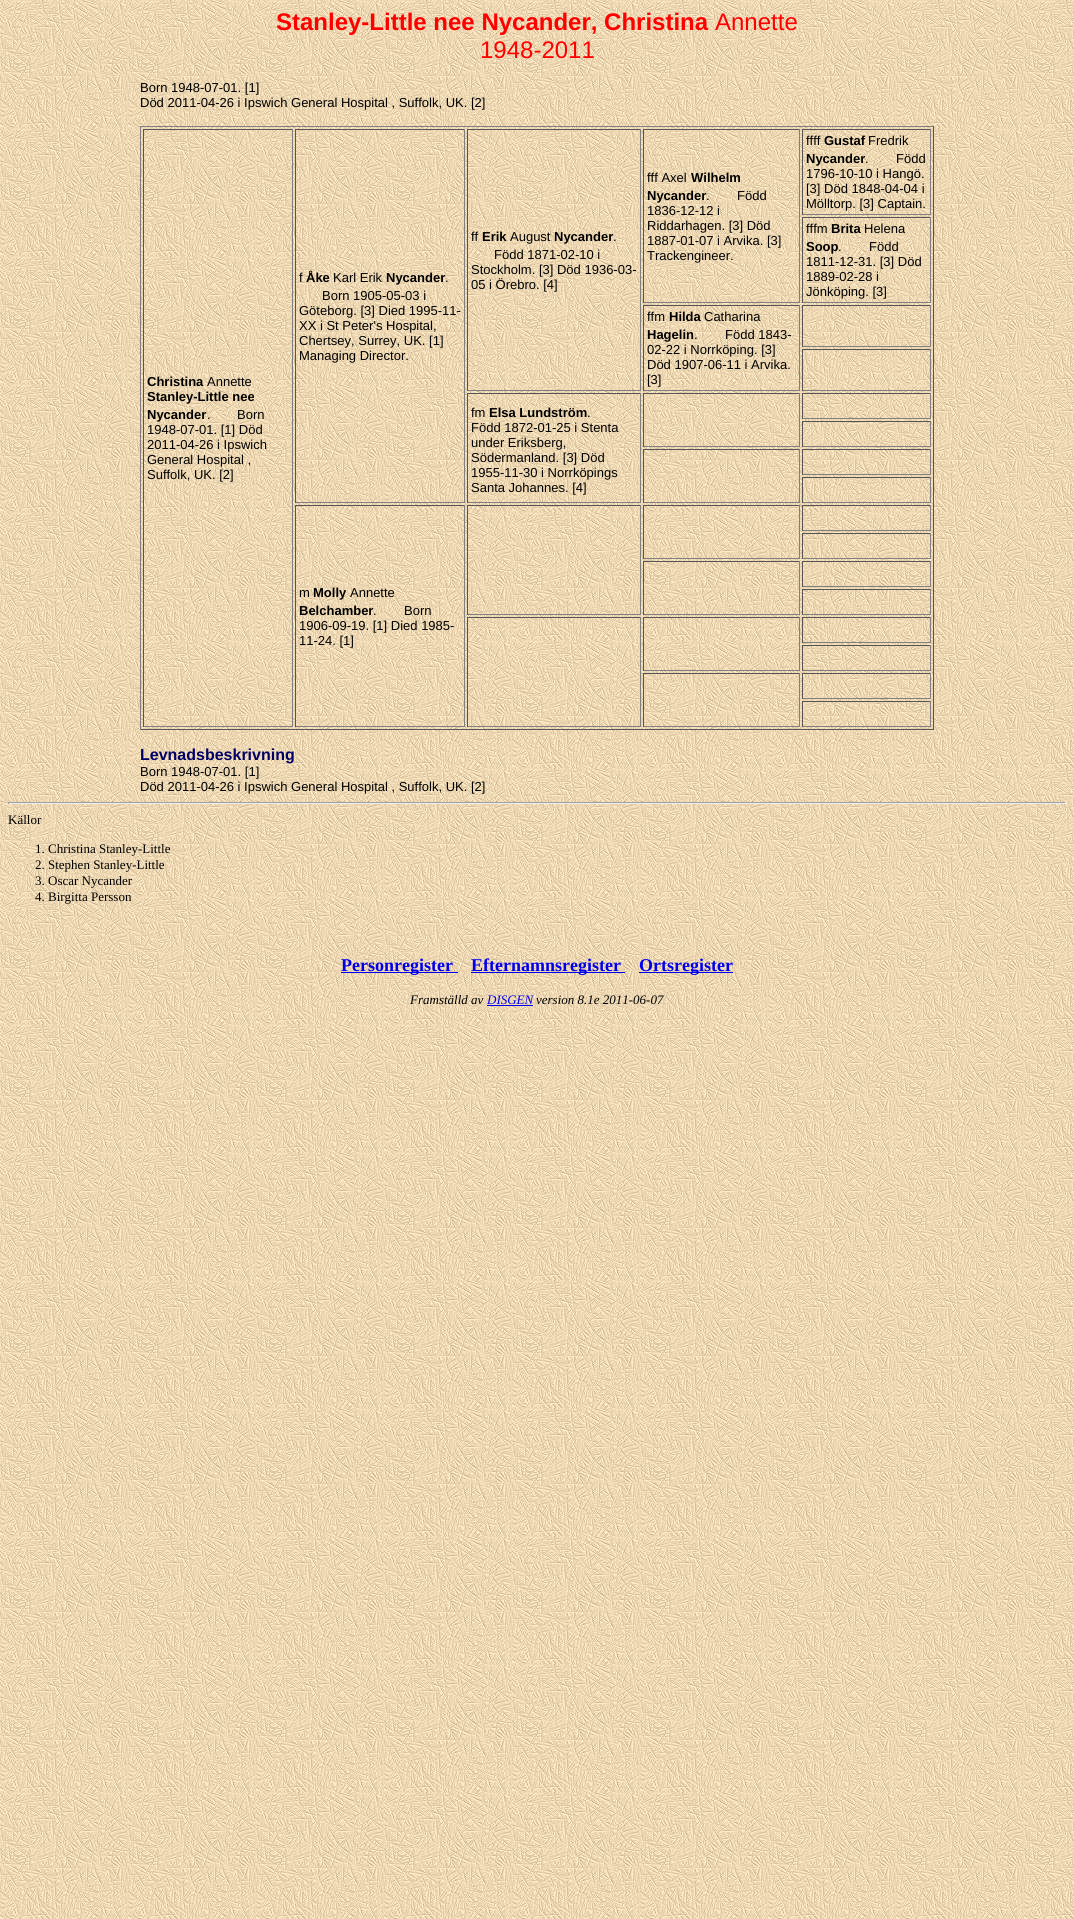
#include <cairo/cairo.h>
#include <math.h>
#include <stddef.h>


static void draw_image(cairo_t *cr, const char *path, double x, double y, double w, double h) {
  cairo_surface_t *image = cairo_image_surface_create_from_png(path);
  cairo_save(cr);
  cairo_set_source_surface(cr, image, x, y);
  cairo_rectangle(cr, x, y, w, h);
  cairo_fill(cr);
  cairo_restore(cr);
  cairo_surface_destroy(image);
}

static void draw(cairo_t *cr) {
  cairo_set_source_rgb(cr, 1, 1, 1);
  cairo_paint(cr);
  draw_image(cr, "images/1.png", 0, 0, 1074, 1919);
  cairo_set_source_rgb(cr, 128 / 255.0, 128 / 255.0, 128 / 255.0);
  cairo_rectangle(cr, 140, 126, 794, 1);
  cairo_fill(cr);
  cairo_set_source_rgb(cr, 85 / 255.0, 85 / 255.0, 85 / 255.0);
  cairo_rectangle(cr, 933, 126, 1, 604);
  cairo_fill(cr);
  cairo_rectangle(cr, 140, 729, 794, 1);
  cairo_fill(cr);
  cairo_set_source_rgb(cr, 128 / 255.0, 128 / 255.0, 128 / 255.0);
  cairo_rectangle(cr, 140, 126, 1, 604);
  cairo_fill(cr);
  cairo_set_source_rgb(cr, 85 / 255.0, 85 / 255.0, 85 / 255.0);
  cairo_rectangle(cr, 467, 129, 174, 1);
  cairo_fill(cr);
  cairo_set_source_rgb(cr, 128 / 255.0, 128 / 255.0, 128 / 255.0);
  cairo_rectangle(cr, 640, 129, 1, 262);
  cairo_fill(cr);
  cairo_rectangle(cr, 467, 390, 174, 1);
  cairo_fill(cr);
  cairo_set_source_rgb(cr, 85 / 255.0, 85 / 255.0, 85 / 255.0);
  cairo_rectangle(cr, 467, 129, 1, 262);
  cairo_fill(cr);
  cairo_rectangle(cr, 643, 129, 157, 1);
  cairo_fill(cr);
  cairo_set_source_rgb(cr, 128 / 255.0, 128 / 255.0, 128 / 255.0);
  cairo_rectangle(cr, 799, 129, 1, 174);
  cairo_fill(cr);
  cairo_rectangle(cr, 643, 302, 157, 1);
  cairo_fill(cr);
  cairo_set_source_rgb(cr, 85 / 255.0, 85 / 255.0, 85 / 255.0);
  cairo_rectangle(cr, 643, 129, 1, 174);
  cairo_fill(cr);
  cairo_rectangle(cr, 802, 129, 129, 1);
  cairo_fill(cr);
  cairo_set_source_rgb(cr, 128 / 255.0, 128 / 255.0, 128 / 255.0);
  cairo_rectangle(cr, 930, 129, 1, 86);
  cairo_fill(cr);
  cairo_rectangle(cr, 802, 214, 129, 1);
  cairo_fill(cr);
  cairo_set_source_rgb(cr, 85 / 255.0, 85 / 255.0, 85 / 255.0);
  cairo_rectangle(cr, 802, 129, 1, 86);
  cairo_fill(cr);
  cairo_rectangle(cr, 295, 129, 170, 1);
  cairo_fill(cr);
  cairo_set_source_rgb(cr, 128 / 255.0, 128 / 255.0, 128 / 255.0);
  cairo_rectangle(cr, 464, 129, 1, 374);
  cairo_fill(cr);
  cairo_rectangle(cr, 295, 502, 170, 1);
  cairo_fill(cr);
  cairo_set_source_rgb(cr, 85 / 255.0, 85 / 255.0, 85 / 255.0);
  cairo_rectangle(cr, 295, 129, 1, 374);
  cairo_fill(cr);
  cairo_rectangle(cr, 143, 129, 150, 1);
  cairo_fill(cr);
  cairo_set_source_rgb(cr, 128 / 255.0, 128 / 255.0, 128 / 255.0);
  cairo_rectangle(cr, 292, 129, 1, 598);
  cairo_fill(cr);
  cairo_rectangle(cr, 143, 726, 150, 1);
  cairo_fill(cr);
  cairo_set_source_rgb(cr, 85 / 255.0, 85 / 255.0, 85 / 255.0);
  cairo_rectangle(cr, 143, 129, 1, 598);
  cairo_fill(cr);
  cairo_rectangle(cr, 802, 217, 129, 1);
  cairo_fill(cr);
  cairo_set_source_rgb(cr, 128 / 255.0, 128 / 255.0, 128 / 255.0);
  cairo_rectangle(cr, 930, 217, 1, 86);
  cairo_fill(cr);
  cairo_rectangle(cr, 802, 302, 129, 1);
  cairo_fill(cr);
  cairo_set_source_rgb(cr, 85 / 255.0, 85 / 255.0, 85 / 255.0);
  cairo_rectangle(cr, 802, 217, 1, 86);
  cairo_fill(cr);
  cairo_rectangle(cr, 643, 305, 157, 1);
  cairo_fill(cr);
  cairo_set_source_rgb(cr, 128 / 255.0, 128 / 255.0, 128 / 255.0);
  cairo_rectangle(cr, 799, 305, 1, 86);
  cairo_fill(cr);
  cairo_rectangle(cr, 643, 390, 157, 1);
  cairo_fill(cr);
  cairo_set_source_rgb(cr, 85 / 255.0, 85 / 255.0, 85 / 255.0);
  cairo_rectangle(cr, 643, 305, 1, 86);
  cairo_fill(cr);
  cairo_rectangle(cr, 802, 305, 129, 1);
  cairo_fill(cr);
  cairo_set_source_rgb(cr, 128 / 255.0, 128 / 255.0, 128 / 255.0);
  cairo_rectangle(cr, 930, 305, 1, 42);
  cairo_fill(cr);
  cairo_rectangle(cr, 802, 346, 129, 1);
  cairo_fill(cr);
  cairo_set_source_rgb(cr, 85 / 255.0, 85 / 255.0, 85 / 255.0);
  cairo_rectangle(cr, 802, 305, 1, 42);
  cairo_fill(cr);
  cairo_rectangle(cr, 802, 349, 129, 1);
  cairo_fill(cr);
  cairo_set_source_rgb(cr, 128 / 255.0, 128 / 255.0, 128 / 255.0);
  cairo_rectangle(cr, 930, 349, 1, 42);
  cairo_fill(cr);
  cairo_rectangle(cr, 802, 390, 129, 1);
  cairo_fill(cr);
  cairo_set_source_rgb(cr, 85 / 255.0, 85 / 255.0, 85 / 255.0);
  cairo_rectangle(cr, 802, 349, 1, 42);
  cairo_fill(cr);
  cairo_rectangle(cr, 467, 393, 174, 1);
  cairo_fill(cr);
  cairo_set_source_rgb(cr, 128 / 255.0, 128 / 255.0, 128 / 255.0);
  cairo_rectangle(cr, 640, 393, 1, 110);
  cairo_fill(cr);
  cairo_rectangle(cr, 467, 502, 174, 1);
  cairo_fill(cr);
  cairo_set_source_rgb(cr, 85 / 255.0, 85 / 255.0, 85 / 255.0);
  cairo_rectangle(cr, 467, 393, 1, 110);
  cairo_fill(cr);
  cairo_rectangle(cr, 643, 393, 157, 1);
  cairo_fill(cr);
  cairo_set_source_rgb(cr, 128 / 255.0, 128 / 255.0, 128 / 255.0);
  cairo_rectangle(cr, 799, 393, 1, 54);
  cairo_fill(cr);
  cairo_rectangle(cr, 643, 446, 157, 1);
  cairo_fill(cr);
  cairo_set_source_rgb(cr, 85 / 255.0, 85 / 255.0, 85 / 255.0);
  cairo_rectangle(cr, 643, 393, 1, 54);
  cairo_fill(cr);
  cairo_rectangle(cr, 802, 393, 129, 1);
  cairo_fill(cr);
  cairo_set_source_rgb(cr, 128 / 255.0, 128 / 255.0, 128 / 255.0);
  cairo_rectangle(cr, 930, 393, 1, 26);
  cairo_fill(cr);
  cairo_rectangle(cr, 802, 418, 129, 1);
  cairo_fill(cr);
  cairo_set_source_rgb(cr, 85 / 255.0, 85 / 255.0, 85 / 255.0);
  cairo_rectangle(cr, 802, 393, 1, 26);
  cairo_fill(cr);
  cairo_rectangle(cr, 802, 421, 129, 1);
  cairo_fill(cr);
  cairo_set_source_rgb(cr, 128 / 255.0, 128 / 255.0, 128 / 255.0);
  cairo_rectangle(cr, 930, 421, 1, 26);
  cairo_fill(cr);
  cairo_rectangle(cr, 802, 446, 129, 1);
  cairo_fill(cr);
  cairo_set_source_rgb(cr, 85 / 255.0, 85 / 255.0, 85 / 255.0);
  cairo_rectangle(cr, 802, 421, 1, 26);
  cairo_fill(cr);
  cairo_rectangle(cr, 643, 449, 157, 1);
  cairo_fill(cr);
  cairo_set_source_rgb(cr, 128 / 255.0, 128 / 255.0, 128 / 255.0);
  cairo_rectangle(cr, 799, 449, 1, 54);
  cairo_fill(cr);
  cairo_rectangle(cr, 643, 502, 157, 1);
  cairo_fill(cr);
  cairo_set_source_rgb(cr, 85 / 255.0, 85 / 255.0, 85 / 255.0);
  cairo_rectangle(cr, 643, 449, 1, 54);
  cairo_fill(cr);
  cairo_rectangle(cr, 802, 449, 129, 1);
  cairo_fill(cr);
  cairo_set_source_rgb(cr, 128 / 255.0, 128 / 255.0, 128 / 255.0);
  cairo_rectangle(cr, 930, 449, 1, 26);
  cairo_fill(cr);
  cairo_rectangle(cr, 802, 474, 129, 1);
  cairo_fill(cr);
  cairo_set_source_rgb(cr, 85 / 255.0, 85 / 255.0, 85 / 255.0);
  cairo_rectangle(cr, 802, 449, 1, 26);
  cairo_fill(cr);
  cairo_rectangle(cr, 802, 477, 129, 1);
  cairo_fill(cr);
  cairo_set_source_rgb(cr, 128 / 255.0, 128 / 255.0, 128 / 255.0);
  cairo_rectangle(cr, 930, 477, 1, 26);
  cairo_fill(cr);
  cairo_rectangle(cr, 802, 502, 129, 1);
  cairo_fill(cr);
  cairo_set_source_rgb(cr, 85 / 255.0, 85 / 255.0, 85 / 255.0);
  cairo_rectangle(cr, 802, 477, 1, 26);
  cairo_fill(cr);
  cairo_rectangle(cr, 802, 533, 129, 1);
  cairo_fill(cr);
  cairo_set_source_rgb(cr, 128 / 255.0, 128 / 255.0, 128 / 255.0);
  cairo_rectangle(cr, 930, 533, 1, 26);
  cairo_fill(cr);
  cairo_rectangle(cr, 802, 558, 129, 1);
  cairo_fill(cr);
  cairo_set_source_rgb(cr, 85 / 255.0, 85 / 255.0, 85 / 255.0);
  cairo_rectangle(cr, 802, 533, 1, 26);
  cairo_fill(cr);
  cairo_rectangle(cr, 467, 505, 174, 1);
  cairo_fill(cr);
  cairo_set_source_rgb(cr, 128 / 255.0, 128 / 255.0, 128 / 255.0);
  cairo_rectangle(cr, 640, 505, 1, 110);
  cairo_fill(cr);
  cairo_rectangle(cr, 467, 614, 174, 1);
  cairo_fill(cr);
  cairo_set_source_rgb(cr, 85 / 255.0, 85 / 255.0, 85 / 255.0);
  cairo_rectangle(cr, 467, 505, 1, 110);
  cairo_fill(cr);
  cairo_rectangle(cr, 643, 505, 157, 1);
  cairo_fill(cr);
  cairo_set_source_rgb(cr, 128 / 255.0, 128 / 255.0, 128 / 255.0);
  cairo_rectangle(cr, 799, 505, 1, 54);
  cairo_fill(cr);
  cairo_rectangle(cr, 643, 558, 157, 1);
  cairo_fill(cr);
  cairo_set_source_rgb(cr, 85 / 255.0, 85 / 255.0, 85 / 255.0);
  cairo_rectangle(cr, 643, 505, 1, 54);
  cairo_fill(cr);
  cairo_rectangle(cr, 802, 505, 129, 1);
  cairo_fill(cr);
  cairo_set_source_rgb(cr, 128 / 255.0, 128 / 255.0, 128 / 255.0);
  cairo_rectangle(cr, 930, 505, 1, 26);
  cairo_fill(cr);
  cairo_rectangle(cr, 802, 530, 129, 1);
  cairo_fill(cr);
  cairo_set_source_rgb(cr, 85 / 255.0, 85 / 255.0, 85 / 255.0);
  cairo_rectangle(cr, 802, 505, 1, 26);
  cairo_fill(cr);
  cairo_rectangle(cr, 295, 505, 170, 1);
  cairo_fill(cr);
  cairo_set_source_rgb(cr, 128 / 255.0, 128 / 255.0, 128 / 255.0);
  cairo_rectangle(cr, 464, 505, 1, 222);
  cairo_fill(cr);
  cairo_rectangle(cr, 295, 726, 170, 1);
  cairo_fill(cr);
  cairo_set_source_rgb(cr, 85 / 255.0, 85 / 255.0, 85 / 255.0);
  cairo_rectangle(cr, 295, 505, 1, 222);
  cairo_fill(cr);
  cairo_rectangle(cr, 643, 561, 157, 1);
  cairo_fill(cr);
  cairo_set_source_rgb(cr, 128 / 255.0, 128 / 255.0, 128 / 255.0);
  cairo_rectangle(cr, 799, 561, 1, 54);
  cairo_fill(cr);
  cairo_rectangle(cr, 643, 614, 157, 1);
  cairo_fill(cr);
  cairo_set_source_rgb(cr, 85 / 255.0, 85 / 255.0, 85 / 255.0);
  cairo_rectangle(cr, 643, 561, 1, 54);
  cairo_fill(cr);
  cairo_rectangle(cr, 802, 561, 129, 1);
  cairo_fill(cr);
  cairo_set_source_rgb(cr, 128 / 255.0, 128 / 255.0, 128 / 255.0);
  cairo_rectangle(cr, 930, 561, 1, 26);
  cairo_fill(cr);
  cairo_rectangle(cr, 802, 586, 129, 1);
  cairo_fill(cr);
  cairo_set_source_rgb(cr, 85 / 255.0, 85 / 255.0, 85 / 255.0);
  cairo_rectangle(cr, 802, 561, 1, 26);
  cairo_fill(cr);
  cairo_rectangle(cr, 802, 589, 129, 1);
  cairo_fill(cr);
  cairo_set_source_rgb(cr, 128 / 255.0, 128 / 255.0, 128 / 255.0);
  cairo_rectangle(cr, 930, 589, 1, 26);
  cairo_fill(cr);
  cairo_rectangle(cr, 802, 614, 129, 1);
  cairo_fill(cr);
  cairo_set_source_rgb(cr, 85 / 255.0, 85 / 255.0, 85 / 255.0);
  cairo_rectangle(cr, 802, 589, 1, 26);
  cairo_fill(cr);
  cairo_rectangle(cr, 467, 617, 174, 1);
  cairo_fill(cr);
  cairo_set_source_rgb(cr, 128 / 255.0, 128 / 255.0, 128 / 255.0);
  cairo_rectangle(cr, 640, 617, 1, 110);
  cairo_fill(cr);
  cairo_rectangle(cr, 467, 726, 174, 1);
  cairo_fill(cr);
  cairo_set_source_rgb(cr, 85 / 255.0, 85 / 255.0, 85 / 255.0);
  cairo_rectangle(cr, 467, 617, 1, 110);
  cairo_fill(cr);
  cairo_rectangle(cr, 643, 617, 157, 1);
  cairo_fill(cr);
  cairo_set_source_rgb(cr, 128 / 255.0, 128 / 255.0, 128 / 255.0);
  cairo_rectangle(cr, 799, 617, 1, 54);
  cairo_fill(cr);
  cairo_rectangle(cr, 643, 670, 157, 1);
  cairo_fill(cr);
  cairo_set_source_rgb(cr, 85 / 255.0, 85 / 255.0, 85 / 255.0);
  cairo_rectangle(cr, 643, 617, 1, 54);
  cairo_fill(cr);
  cairo_rectangle(cr, 802, 617, 129, 1);
  cairo_fill(cr);
  cairo_set_source_rgb(cr, 128 / 255.0, 128 / 255.0, 128 / 255.0);
  cairo_rectangle(cr, 930, 617, 1, 26);
  cairo_fill(cr);
  cairo_rectangle(cr, 802, 642, 129, 1);
  cairo_fill(cr);
  cairo_set_source_rgb(cr, 85 / 255.0, 85 / 255.0, 85 / 255.0);
  cairo_rectangle(cr, 802, 617, 1, 26);
  cairo_fill(cr);
  cairo_rectangle(cr, 802, 645, 129, 1);
  cairo_fill(cr);
  cairo_set_source_rgb(cr, 128 / 255.0, 128 / 255.0, 128 / 255.0);
  cairo_rectangle(cr, 930, 645, 1, 26);
  cairo_fill(cr);
  cairo_rectangle(cr, 802, 670, 129, 1);
  cairo_fill(cr);
  cairo_set_source_rgb(cr, 85 / 255.0, 85 / 255.0, 85 / 255.0);
  cairo_rectangle(cr, 802, 645, 1, 26);
  cairo_fill(cr);
  cairo_rectangle(cr, 643, 673, 157, 1);
  cairo_fill(cr);
  cairo_set_source_rgb(cr, 128 / 255.0, 128 / 255.0, 128 / 255.0);
  cairo_rectangle(cr, 799, 673, 1, 54);
  cairo_fill(cr);
  cairo_rectangle(cr, 643, 726, 157, 1);
  cairo_fill(cr);
  cairo_set_source_rgb(cr, 85 / 255.0, 85 / 255.0, 85 / 255.0);
  cairo_rectangle(cr, 643, 673, 1, 54);
  cairo_fill(cr);
  cairo_rectangle(cr, 802, 673, 129, 1);
  cairo_fill(cr);
  cairo_set_source_rgb(cr, 128 / 255.0, 128 / 255.0, 128 / 255.0);
  cairo_rectangle(cr, 930, 673, 1, 26);
  cairo_fill(cr);
  cairo_rectangle(cr, 802, 698, 129, 1);
  cairo_fill(cr);
  cairo_set_source_rgb(cr, 85 / 255.0, 85 / 255.0, 85 / 255.0);
  cairo_rectangle(cr, 802, 673, 1, 26);
  cairo_fill(cr);
  cairo_rectangle(cr, 802, 701, 129, 1);
  cairo_fill(cr);
  cairo_set_source_rgb(cr, 128 / 255.0, 128 / 255.0, 128 / 255.0);
  cairo_rectangle(cr, 930, 701, 1, 26);
  cairo_fill(cr);
  cairo_rectangle(cr, 802, 726, 129, 1);
  cairo_fill(cr);
  cairo_set_source_rgb(cr, 85 / 255.0, 85 / 255.0, 85 / 255.0);
  cairo_rectangle(cr, 802, 701, 1, 26);
  cairo_fill(cr);
  cairo_set_source_rgb(cr, 159 / 255.0, 159 / 255.0, 159 / 255.0);
  cairo_rectangle(cr, 8, 802, 1058, 1);
  cairo_fill(cr);
  cairo_set_source_rgb(cr, 238 / 255.0, 238 / 255.0, 238 / 255.0);
  cairo_rectangle(cr, 1065, 802, 1, 2);
  cairo_fill(cr);
  cairo_rectangle(cr, 8, 803, 1058, 1);
  cairo_fill(cr);
  cairo_set_source_rgb(cr, 159 / 255.0, 159 / 255.0, 159 / 255.0);
  cairo_rectangle(cr, 8, 802, 1, 2);
  cairo_fill(cr);
  cairo_set_source_rgb(cr, 0, 0, 238 / 255.0);
  cairo_rectangle(cr, 341, 972, 117, 1);
  cairo_fill(cr);
  cairo_rectangle(cr, 471, 972, 154, 1);
  cairo_fill(cr);
  cairo_rectangle(cr, 639, 972, 94, 1);
  cairo_fill(cr);
  cairo_rectangle(cr, 487, 1005, 46, 1);
  cairo_fill(cr);
  cairo_select_font_face(cr, "Liberation Sans", CAIRO_FONT_SLANT_NORMAL, CAIRO_FONT_WEIGHT_BOLD);
  cairo_set_font_size(cr, 24);
  cairo_set_source_rgb(cr, 1, 0, 0);
  cairo_move_to(cr, 276, 30);
  cairo_show_text(cr, "Stanley-Little nee Nycander, Christina");
  cairo_select_font_face(cr, "Liberation Sans", CAIRO_FONT_SLANT_NORMAL, CAIRO_FONT_WEIGHT_NORMAL);
  cairo_move_to(cr, 715, 30);
  cairo_show_text(cr, "Annette");
  cairo_move_to(cr, 480, 58);
  cairo_show_text(cr, "1948-2011");
  cairo_set_font_size(cr, 13);
  cairo_set_source_rgb(cr, 0, 0, 0);
  cairo_move_to(cr, 140, 92);
  cairo_show_text(cr, "Born 1948-07-01. [1]");
  cairo_move_to(cr, 140, 107);
  cairo_show_text(cr, "Död 2011-04-26 i Ipswich General Hospital , Suffolk, UK. [2]");
  cairo_move_to(cr, 471, 241);
  cairo_show_text(cr, "ff");
  cairo_select_font_face(cr, "Liberation Sans", CAIRO_FONT_SLANT_NORMAL, CAIRO_FONT_WEIGHT_BOLD);
  cairo_move_to(cr, 482, 241);
  cairo_show_text(cr, "Erik");
  cairo_select_font_face(cr, "Liberation Sans", CAIRO_FONT_SLANT_NORMAL, CAIRO_FONT_WEIGHT_NORMAL);
  cairo_move_to(cr, 510, 241);
  cairo_show_text(cr, "August");
  cairo_select_font_face(cr, "Liberation Sans", CAIRO_FONT_SLANT_NORMAL, CAIRO_FONT_WEIGHT_BOLD);
  cairo_move_to(cr, 554, 241);
  cairo_show_text(cr, "Nycander");
  cairo_select_font_face(cr, "Liberation Sans", CAIRO_FONT_SLANT_NORMAL, CAIRO_FONT_WEIGHT_NORMAL);
  cairo_move_to(cr, 613, 241);
  cairo_show_text(cr, ".");
  cairo_move_to(cr, 494, 259);
  cairo_show_text(cr, "Född 1871-02-10 i");
  cairo_move_to(cr, 471, 274);
  cairo_show_text(cr, "Stockholm. [3] Död 1936-03-");
  cairo_move_to(cr, 471, 289);
  cairo_show_text(cr, "05 i Örebro. [4]");
  cairo_move_to(cr, 647, 182);
  cairo_show_text(cr, "fff Axel");
  cairo_select_font_face(cr, "Liberation Sans", CAIRO_FONT_SLANT_NORMAL, CAIRO_FONT_WEIGHT_BOLD);
  cairo_move_to(cr, 691, 182);
  cairo_show_text(cr, "Wilhelm");
  cairo_move_to(cr, 647, 200);
  cairo_show_text(cr, "Nycander");
  cairo_select_font_face(cr, "Liberation Sans", CAIRO_FONT_SLANT_NORMAL, CAIRO_FONT_WEIGHT_NORMAL);
  cairo_move_to(cr, 706, 200);
  cairo_show_text(cr, ".");
  cairo_move_to(cr, 737, 200);
  cairo_show_text(cr, "Född");
  cairo_move_to(cr, 647, 215);
  cairo_show_text(cr, "1836-12-12 i");
  cairo_move_to(cr, 647, 230);
  cairo_show_text(cr, "Riddarhagen. [3] Död");
  cairo_move_to(cr, 647, 245);
  cairo_show_text(cr, "1887-01-07 i Arvika. [3]");
  cairo_move_to(cr, 647, 260);
  cairo_show_text(cr, "Trackengineer.");
  cairo_move_to(cr, 806, 145);
  cairo_show_text(cr, "ffff");
  cairo_select_font_face(cr, "Liberation Sans", CAIRO_FONT_SLANT_NORMAL, CAIRO_FONT_WEIGHT_BOLD);
  cairo_move_to(cr, 824, 145);
  cairo_show_text(cr, "Gustaf");
  cairo_select_font_face(cr, "Liberation Sans", CAIRO_FONT_SLANT_NORMAL, CAIRO_FONT_WEIGHT_NORMAL);
  cairo_move_to(cr, 868, 145);
  cairo_show_text(cr, "Fredrik");
  cairo_select_font_face(cr, "Liberation Sans", CAIRO_FONT_SLANT_NORMAL, CAIRO_FONT_WEIGHT_BOLD);
  cairo_move_to(cr, 806, 163);
  cairo_show_text(cr, "Nycander");
  cairo_select_font_face(cr, "Liberation Sans", CAIRO_FONT_SLANT_NORMAL, CAIRO_FONT_WEIGHT_NORMAL);
  cairo_move_to(cr, 865, 163);
  cairo_show_text(cr, ".");
  cairo_move_to(cr, 896, 163);
  cairo_show_text(cr, "Född");
  cairo_move_to(cr, 806, 178);
  cairo_show_text(cr, "1796-10-10 i Hangö.");
  cairo_move_to(cr, 806, 193);
  cairo_show_text(cr, "[3] Död 1848-04-04 i");
  cairo_move_to(cr, 806, 208);
  cairo_show_text(cr, "Mölltorp. [3] Captain.");
  cairo_move_to(cr, 299, 282);
  cairo_show_text(cr, "f");
  cairo_select_font_face(cr, "Liberation Sans", CAIRO_FONT_SLANT_NORMAL, CAIRO_FONT_WEIGHT_BOLD);
  cairo_move_to(cr, 306, 282);
  cairo_show_text(cr, "Åke");
  cairo_select_font_face(cr, "Liberation Sans", CAIRO_FONT_SLANT_NORMAL, CAIRO_FONT_WEIGHT_NORMAL);
  cairo_move_to(cr, 333, 282);
  cairo_show_text(cr, "Karl Erik");
  cairo_select_font_face(cr, "Liberation Sans", CAIRO_FONT_SLANT_NORMAL, CAIRO_FONT_WEIGHT_BOLD);
  cairo_move_to(cr, 386, 282);
  cairo_show_text(cr, "Nycander");
  cairo_select_font_face(cr, "Liberation Sans", CAIRO_FONT_SLANT_NORMAL, CAIRO_FONT_WEIGHT_NORMAL);
  cairo_move_to(cr, 445, 282);
  cairo_show_text(cr, ".");
  cairo_move_to(cr, 322, 300);
  cairo_show_text(cr, "Born 1905-05-03 i");
  cairo_move_to(cr, 299, 315);
  cairo_show_text(cr, "Göteborg. [3] Died 1995-11-");
  cairo_move_to(cr, 299, 330);
  cairo_show_text(cr, "XX i St Peter's Hospital,");
  cairo_move_to(cr, 299, 345);
  cairo_show_text(cr, "Chertsey, Surrey, UK. [1]");
  cairo_move_to(cr, 299, 360);
  cairo_show_text(cr, "Managing Director.");
  cairo_select_font_face(cr, "Liberation Sans", CAIRO_FONT_SLANT_NORMAL, CAIRO_FONT_WEIGHT_BOLD);
  cairo_move_to(cr, 147, 386);
  cairo_show_text(cr, "Christina");
  cairo_select_font_face(cr, "Liberation Sans", CAIRO_FONT_SLANT_NORMAL, CAIRO_FONT_WEIGHT_NORMAL);
  cairo_move_to(cr, 207, 386);
  cairo_show_text(cr, "Annette");
  cairo_select_font_face(cr, "Liberation Sans", CAIRO_FONT_SLANT_NORMAL, CAIRO_FONT_WEIGHT_BOLD);
  cairo_move_to(cr, 147, 401);
  cairo_show_text(cr, "Stanley-Little nee");
  cairo_move_to(cr, 147, 419);
  cairo_show_text(cr, "Nycander");
  cairo_select_font_face(cr, "Liberation Sans", CAIRO_FONT_SLANT_NORMAL, CAIRO_FONT_WEIGHT_NORMAL);
  cairo_move_to(cr, 207, 419);
  cairo_show_text(cr, ".");
  cairo_move_to(cr, 237, 419);
  cairo_show_text(cr, "Born");
  cairo_move_to(cr, 147, 434);
  cairo_show_text(cr, "1948-07-01. [1] Död");
  cairo_move_to(cr, 147, 449);
  cairo_show_text(cr, "2011-04-26 i Ipswich");
  cairo_move_to(cr, 147, 464);
  cairo_show_text(cr, "General Hospital ,");
  cairo_move_to(cr, 147, 479);
  cairo_show_text(cr, "Suffolk, UK. [2]");
  cairo_move_to(cr, 806, 233);
  cairo_show_text(cr, "fffm");
  cairo_select_font_face(cr, "Liberation Sans", CAIRO_FONT_SLANT_NORMAL, CAIRO_FONT_WEIGHT_BOLD);
  cairo_move_to(cr, 831, 233);
  cairo_show_text(cr, "Brita");
  cairo_select_font_face(cr, "Liberation Sans", CAIRO_FONT_SLANT_NORMAL, CAIRO_FONT_WEIGHT_NORMAL);
  cairo_move_to(cr, 864, 233);
  cairo_show_text(cr, "Helena");
  cairo_select_font_face(cr, "Liberation Sans", CAIRO_FONT_SLANT_NORMAL, CAIRO_FONT_WEIGHT_BOLD);
  cairo_move_to(cr, 806, 251);
  cairo_show_text(cr, "Soop");
  cairo_select_font_face(cr, "Liberation Sans", CAIRO_FONT_SLANT_NORMAL, CAIRO_FONT_WEIGHT_NORMAL);
  cairo_move_to(cr, 838, 251);
  cairo_show_text(cr, ".");
  cairo_move_to(cr, 869, 251);
  cairo_show_text(cr, "Född");
  cairo_move_to(cr, 806, 266);
  cairo_show_text(cr, "1811-12-31. [3] Död");
  cairo_move_to(cr, 806, 281);
  cairo_show_text(cr, "1889-02-28 i");
  cairo_move_to(cr, 806, 296);
  cairo_show_text(cr, "Jönköping. [3]");
  cairo_move_to(cr, 647, 321);
  cairo_show_text(cr, "ffm");
  cairo_select_font_face(cr, "Liberation Sans", CAIRO_FONT_SLANT_NORMAL, CAIRO_FONT_WEIGHT_BOLD);
  cairo_move_to(cr, 669, 321);
  cairo_show_text(cr, "Hilda");
  cairo_select_font_face(cr, "Liberation Sans", CAIRO_FONT_SLANT_NORMAL, CAIRO_FONT_WEIGHT_NORMAL);
  cairo_move_to(cr, 704, 321);
  cairo_show_text(cr, "Catharina");
  cairo_select_font_face(cr, "Liberation Sans", CAIRO_FONT_SLANT_NORMAL, CAIRO_FONT_WEIGHT_BOLD);
  cairo_move_to(cr, 647, 339);
  cairo_show_text(cr, "Hagelin");
  cairo_select_font_face(cr, "Liberation Sans", CAIRO_FONT_SLANT_NORMAL, CAIRO_FONT_WEIGHT_NORMAL);
  cairo_move_to(cr, 694, 339);
  cairo_show_text(cr, ".");
  cairo_move_to(cr, 725, 339);
  cairo_show_text(cr, "Född 1843-");
  cairo_move_to(cr, 647, 354);
  cairo_show_text(cr, "02-22 i Norrköping. [3]");
  cairo_move_to(cr, 647, 369);
  cairo_show_text(cr, "Död 1907-06-11 i Arvika.");
  cairo_move_to(cr, 647, 384);
  cairo_show_text(cr, "[3]");
  cairo_move_to(cr, 471, 417);
  cairo_show_text(cr, "fm");
  cairo_select_font_face(cr, "Liberation Sans", CAIRO_FONT_SLANT_NORMAL, CAIRO_FONT_WEIGHT_BOLD);
  cairo_move_to(cr, 489, 417);
  cairo_show_text(cr, "Elsa Lundström");
  cairo_select_font_face(cr, "Liberation Sans", CAIRO_FONT_SLANT_NORMAL, CAIRO_FONT_WEIGHT_NORMAL);
  cairo_move_to(cr, 587, 417);
  cairo_show_text(cr, ".");
  cairo_move_to(cr, 471, 432);
  cairo_show_text(cr, "Född 1872-01-25 i Stenta");
  cairo_move_to(cr, 471, 447);
  cairo_show_text(cr, "under Eriksberg,");
  cairo_move_to(cr, 471, 462);
  cairo_show_text(cr, "Södermanland. [3] Död");
  cairo_move_to(cr, 471, 477);
  cairo_show_text(cr, "1955-11-30 i Norrköpings");
  cairo_move_to(cr, 471, 492);
  cairo_show_text(cr, "Santa Johannes. [4]");
  cairo_move_to(cr, 299, 597);
  cairo_show_text(cr, "m");
  cairo_select_font_face(cr, "Liberation Sans", CAIRO_FONT_SLANT_NORMAL, CAIRO_FONT_WEIGHT_BOLD);
  cairo_move_to(cr, 313, 597);
  cairo_show_text(cr, "Molly");
  cairo_select_font_face(cr, "Liberation Sans", CAIRO_FONT_SLANT_NORMAL, CAIRO_FONT_WEIGHT_NORMAL);
  cairo_move_to(cr, 350, 597);
  cairo_show_text(cr, "Annette");
  cairo_select_font_face(cr, "Liberation Sans", CAIRO_FONT_SLANT_NORMAL, CAIRO_FONT_WEIGHT_BOLD);
  cairo_move_to(cr, 299, 615);
  cairo_show_text(cr, "Belchamber");
  cairo_select_font_face(cr, "Liberation Sans", CAIRO_FONT_SLANT_NORMAL, CAIRO_FONT_WEIGHT_NORMAL);
  cairo_move_to(cr, 373, 615);
  cairo_show_text(cr, ".");
  cairo_move_to(cr, 404, 615);
  cairo_show_text(cr, "Born");
  cairo_move_to(cr, 299, 630);
  cairo_show_text(cr, "1906-09-19. [1] Died 1985-");
  cairo_move_to(cr, 299, 645);
  cairo_show_text(cr, "11-24. [1]");
  cairo_select_font_face(cr, "Liberation Sans", CAIRO_FONT_SLANT_NORMAL, CAIRO_FONT_WEIGHT_BOLD);
  cairo_set_font_size(cr, 16);
  cairo_set_source_rgb(cr, 0, 0, 102 / 255.0);
  cairo_move_to(cr, 140, 760);
  cairo_show_text(cr, "Levnadsbeskrivning");
  cairo_select_font_face(cr, "Liberation Sans", CAIRO_FONT_SLANT_NORMAL, CAIRO_FONT_WEIGHT_NORMAL);
  cairo_set_font_size(cr, 13);
  cairo_set_source_rgb(cr, 0, 0, 0);
  cairo_move_to(cr, 140, 776);
  cairo_show_text(cr, "Born 1948-07-01. [1]");
  cairo_move_to(cr, 140, 791);
  cairo_show_text(cr, "Död 2011-04-26 i Ipswich General Hospital , Suffolk, UK. [2]");
  cairo_select_font_face(cr, "Liberation Serif", CAIRO_FONT_SLANT_NORMAL, CAIRO_FONT_WEIGHT_NORMAL);
  cairo_move_to(cr, 8, 824);
  cairo_show_text(cr, "Källor");
  cairo_move_to(cr, 35, 853);
  cairo_show_text(cr, "1. Christina Stanley-Little");
  cairo_move_to(cr, 35, 869);
  cairo_show_text(cr, "2. Stephen Stanley-Little");
  cairo_move_to(cr, 35, 885);
  cairo_show_text(cr, "3. Oscar Nycander");
  cairo_move_to(cr, 35, 901);
  cairo_show_text(cr, "4. Birgitta Persson");
  cairo_select_font_face(cr, "Liberation Serif", CAIRO_FONT_SLANT_NORMAL, CAIRO_FONT_WEIGHT_BOLD);
  cairo_set_font_size(cr, 18);
  cairo_set_source_rgb(cr, 0, 0, 238 / 255.0);
  cairo_move_to(cr, 341, 971);
  cairo_show_text(cr, "Personregister");
  cairo_move_to(cr, 471, 971);
  cairo_show_text(cr, "Efternamnsregister");
  cairo_move_to(cr, 639, 971);
  cairo_show_text(cr, "Ortsregister");
  cairo_select_font_face(cr, "Liberation Serif", CAIRO_FONT_SLANT_ITALIC, CAIRO_FONT_WEIGHT_NORMAL);
  cairo_set_font_size(cr, 13);
  cairo_set_source_rgb(cr, 0, 0, 0);
  cairo_move_to(cr, 410, 1004);
  cairo_show_text(cr, "Framställd av");
  cairo_set_source_rgb(cr, 0, 0, 238 / 255.0);
  cairo_move_to(cr, 487, 1004);
  cairo_show_text(cr, "DISGEN");
  cairo_set_source_rgb(cr, 0, 0, 0);
  cairo_move_to(cr, 536, 1004);
  cairo_show_text(cr, "version 8.1e 2011-06-07");
}

int main(void) {
  cairo_surface_t *surface = cairo_image_surface_create(CAIRO_FORMAT_RGB24, 1074, 1919);
  cairo_t *cr = cairo_create(surface);
  cairo_font_options_t *options = cairo_font_options_create();
  cairo_font_options_set_hint_metrics(options, CAIRO_HINT_METRICS_OFF);
  cairo_font_options_set_hint_style(options, CAIRO_HINT_STYLE_NONE);
  cairo_set_font_options(cr, options);
  cairo_set_miter_limit(cr, 4);
  draw(cr);
  cairo_surface_write_to_png(surface, "out.png");
  cairo_font_options_destroy(options);
  cairo_destroy(cr);
  cairo_surface_destroy(surface);
  return 0;
}
